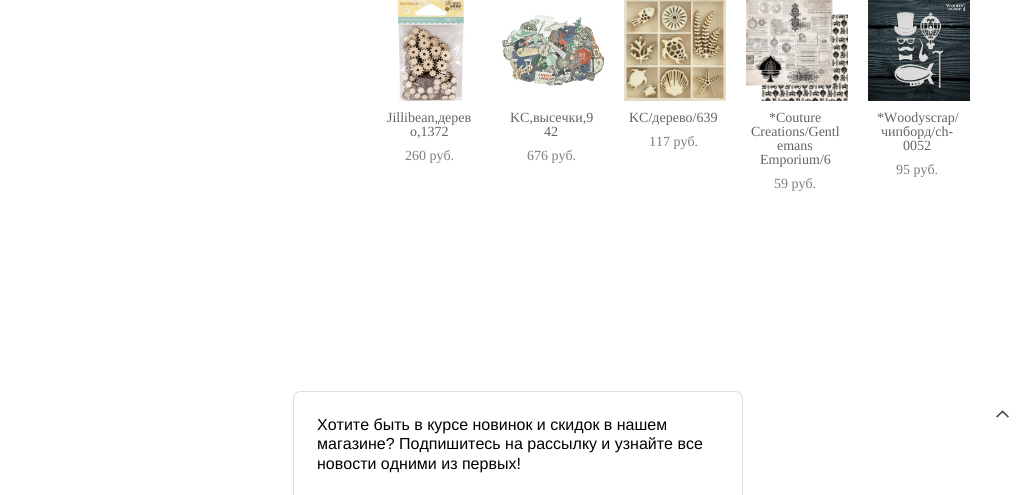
#include <cairo/cairo.h>
#include <math.h>
#include <stddef.h>


static void rounded_rect(cairo_t *cr, double x, double y, double w, double h, double r) {
  cairo_new_sub_path(cr);
  cairo_arc(cr, x + w - r, y + h - r, r, 0, M_PI / 2);
  cairo_arc(cr, x + r, y + h - r, r, M_PI / 2, M_PI);
  cairo_arc(cr, x + r, y + r, r, M_PI, 1.5 * M_PI);
  cairo_arc(cr, x + w - r, y + r, r, 1.5 * M_PI, 2 * M_PI);
  cairo_close_path(cr);
}

static void draw_image(cairo_t *cr, const char *path, double x, double y, double w, double h) {
  cairo_surface_t *image = cairo_image_surface_create_from_png(path);
  cairo_save(cr);
  cairo_set_source_surface(cr, image, x, y);
  cairo_rectangle(cr, x, y, w, h);
  cairo_fill(cr);
  cairo_restore(cr);
  cairo_surface_destroy(image);
}

static void draw(cairo_t *cr) {
  cairo_set_source_rgb(cr, 1, 1, 1);
  cairo_paint(cr);
  draw_image(cr, "images/1.png", 397, 0, 68, 101);
  draw_image(cr, "images/2.png", 502, 14, 102, 72);
  draw_image(cr, "images/3.png", 624, 0, 102, 101);
  draw_image(cr, "images/4.png", 746, 0, 102, 101);
  draw_image(cr, "images/5.png", 868, 0, 102, 101);
  draw_image(cr, "images/6.png", 996, 410, 13, 8);
  rounded_rect(cr, 293.5, 391.5, 449, 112, 7.5);
  cairo_set_source_rgb(cr, 221 / 255.0, 221 / 255.0, 221 / 255.0);
  cairo_set_line_width(cr, 1);
  cairo_stroke(cr);
  cairo_select_font_face(cr, "Liberation Serif", CAIRO_FONT_SLANT_NORMAL, CAIRO_FONT_WEIGHT_NORMAL);
  cairo_set_font_size(cr, 14);
  cairo_set_source_rgb(cr, 99 / 255.0, 99 / 255.0, 99 / 255.0);
  cairo_move_to(cr, 387, 122);
  cairo_show_text(cr, "Jillibean,дерев");
  cairo_move_to(cr, 410, 136);
  cairo_show_text(cr, "о,1372");
  cairo_set_source_rgb(cr, 126 / 255.0, 125 / 255.0, 120 / 255.0);
  cairo_move_to(cr, 405, 160);
  cairo_show_text(cr, "260 pуб.");
  cairo_set_source_rgb(cr, 99 / 255.0, 99 / 255.0, 99 / 255.0);
  cairo_move_to(cr, 510, 122);
  cairo_show_text(cr, "KC,высечки,9");
  cairo_move_to(cr, 544, 136);
  cairo_show_text(cr, "42");
  cairo_set_source_rgb(cr, 126 / 255.0, 125 / 255.0, 120 / 255.0);
  cairo_move_to(cr, 527, 160);
  cairo_show_text(cr, "676 pуб.");
  cairo_set_source_rgb(cr, 99 / 255.0, 99 / 255.0, 99 / 255.0);
  cairo_move_to(cr, 629, 122);
  cairo_show_text(cr, "KC/дерево/639");
  cairo_set_source_rgb(cr, 126 / 255.0, 125 / 255.0, 120 / 255.0);
  cairo_move_to(cr, 649, 146);
  cairo_show_text(cr, "117 pуб.");
  cairo_set_source_rgb(cr, 99 / 255.0, 99 / 255.0, 99 / 255.0);
  cairo_move_to(cr, 769, 122);
  cairo_show_text(cr, "*Couture");
  cairo_move_to(cr, 751, 136);
  cairo_show_text(cr, "Creations/Gentl");
  cairo_move_to(cr, 777, 150);
  cairo_show_text(cr, "emans");
  cairo_move_to(cr, 760, 164);
  cairo_show_text(cr, "Emporium/6");
  cairo_set_source_rgb(cr, 126 / 255.0, 125 / 255.0, 120 / 255.0);
  cairo_move_to(cr, 774, 188);
  cairo_show_text(cr, "59 pуб.");
  cairo_set_source_rgb(cr, 99 / 255.0, 99 / 255.0, 99 / 255.0);
  cairo_move_to(cr, 877, 122);
  cairo_show_text(cr, "*Woodyscrap/");
  cairo_move_to(cr, 881, 136);
  cairo_show_text(cr, "чипборд/ch-");
  cairo_move_to(cr, 903, 150);
  cairo_show_text(cr, "0052");
  cairo_set_source_rgb(cr, 126 / 255.0, 125 / 255.0, 120 / 255.0);
  cairo_move_to(cr, 896, 174);
  cairo_show_text(cr, "95 pуб.");
  cairo_select_font_face(cr, "Liberation Sans", CAIRO_FONT_SLANT_NORMAL, CAIRO_FONT_WEIGHT_NORMAL);
  cairo_set_font_size(cr, 16);
  cairo_set_source_rgb(cr, 0, 0, 0);
  cairo_move_to(cr, 317, 430);
  cairo_show_text(cr, "Хотите быть в курсе новинок и скидок в нашем");
  cairo_move_to(cr, 317, 449);
  cairo_show_text(cr, "магазине? Подпишитесь на рассылку и узнайте все");
  cairo_move_to(cr, 317, 469);
  cairo_show_text(cr, "новости одними из первых!");
}

int main(void) {
  cairo_surface_t *surface = cairo_image_surface_create(CAIRO_FORMAT_RGB24, 1035, 495);
  cairo_t *cr = cairo_create(surface);
  cairo_font_options_t *options = cairo_font_options_create();
  cairo_font_options_set_hint_metrics(options, CAIRO_HINT_METRICS_OFF);
  cairo_font_options_set_hint_style(options, CAIRO_HINT_STYLE_NONE);
  cairo_set_font_options(cr, options);
  cairo_set_miter_limit(cr, 4);
  draw(cr);
  cairo_surface_write_to_png(surface, "out.png");
  cairo_font_options_destroy(options);
  cairo_destroy(cr);
  cairo_surface_destroy(surface);
  return 0;
}
